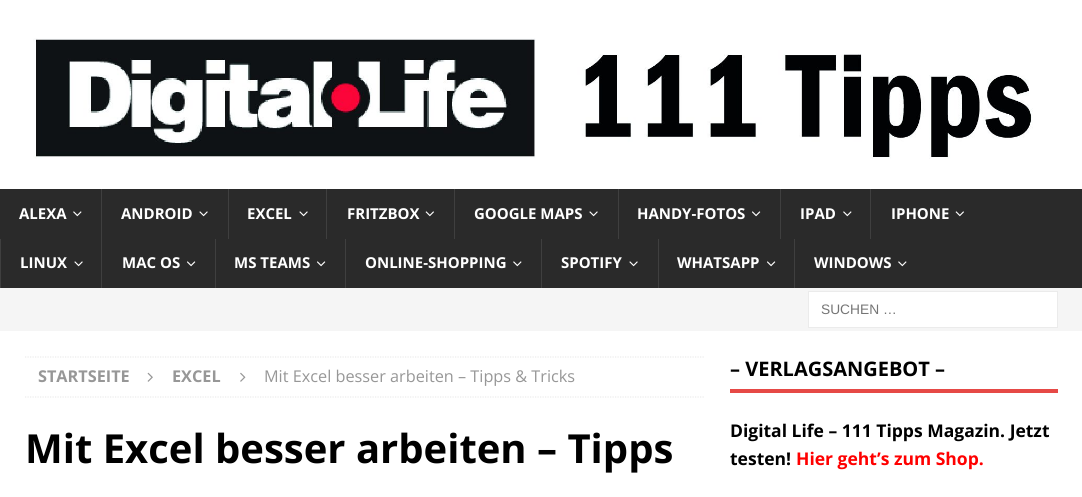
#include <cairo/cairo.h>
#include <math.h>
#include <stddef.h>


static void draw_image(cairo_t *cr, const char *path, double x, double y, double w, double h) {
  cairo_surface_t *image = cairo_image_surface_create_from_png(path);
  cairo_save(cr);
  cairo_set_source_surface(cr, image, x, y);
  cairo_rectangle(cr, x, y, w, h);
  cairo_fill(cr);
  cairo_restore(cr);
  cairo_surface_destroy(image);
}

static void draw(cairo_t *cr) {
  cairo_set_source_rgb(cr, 1, 1, 1);
  cairo_paint(cr);
  draw_image(cr, "images/1.png", 33, 38, 1000, 121);
  cairo_set_source_rgb(cr, 42 / 255.0, 42 / 255.0, 42 / 255.0);
  cairo_rectangle(cr, 0, 189, 1082, 99);
  cairo_fill(cr);
  draw_image(cr, "images/2.png", 73, 211, 9, 6);
  cairo_set_source_rgb(cr, 63 / 255.0, 63 / 255.0, 63 / 255.0);
  cairo_rectangle(cr, 101, 189, 1, 99);
  cairo_fill(cr);
  draw_image(cr, "images/3.png", 199, 211, 9, 6);
  cairo_rectangle(cr, 228, 189, 1, 50);
  cairo_fill(cr);
  draw_image(cr, "images/3.png", 299, 211, 9, 6);
  cairo_rectangle(cr, 326, 189, 1, 50);
  cairo_fill(cr);
  draw_image(cr, "images/4.png", 425, 211, 9, 6);
  cairo_rectangle(cr, 454, 189, 1, 50);
  cairo_fill(cr);
  draw_image(cr, "images/3.png", 589, 211, 9, 6);
  cairo_rectangle(cr, 618, 189, 1, 50);
  cairo_fill(cr);
  draw_image(cr, "images/5.png", 752, 211, 9, 6);
  cairo_rectangle(cr, 780, 189, 1, 50);
  cairo_fill(cr);
  draw_image(cr, "images/2.png", 843, 211, 9, 6);
  cairo_rectangle(cr, 870, 189, 1, 50);
  cairo_fill(cr);
  draw_image(cr, "images/4.png", 955, 211, 9, 6);
  cairo_rectangle(cr, 0, 239, 1, 49);
  cairo_fill(cr);
  draw_image(cr, "images/3.png", 74, 261, 9, 6);
  draw_image(cr, "images/5.png", 187, 261, 9, 6);
  cairo_rectangle(cr, 215, 239, 1, 49);
  cairo_fill(cr);
  draw_image(cr, "images/5.png", 317, 261, 9, 6);
  cairo_rectangle(cr, 345, 239, 1, 49);
  cairo_fill(cr);
  draw_image(cr, "images/2.png", 513, 261, 9, 6);
  cairo_rectangle(cr, 541, 239, 1, 49);
  cairo_fill(cr);
  draw_image(cr, "images/3.png", 629, 261, 9, 6);
  cairo_rectangle(cr, 658, 239, 1, 49);
  cairo_fill(cr);
  draw_image(cr, "images/5.png", 767, 261, 9, 6);
  cairo_rectangle(cr, 794, 239, 1, 49);
  cairo_fill(cr);
  draw_image(cr, "images/2.png", 898, 261, 9, 6);
  cairo_set_source_rgb(cr, 245 / 255.0, 245 / 255.0, 245 / 255.0);
  cairo_rectangle(cr, 0, 288, 1082, 43);
  cairo_fill(cr);
  cairo_set_source_rgb(cr, 1, 1, 1);
  cairo_rectangle(cr, 808.5, 291.5, 249, 36);
  cairo_fill_preserve(cr);
  cairo_set_source_rgb(cr, 235 / 255.0, 235 / 255.0, 235 / 255.0);
  cairo_set_line_width(cr, 1);
  cairo_stroke(cr);
  cairo_new_path(cr);
  cairo_move_to(cr, 25, 357);
  cairo_line_to(cr, 705, 357);
  cairo_set_line_width(cr, 1.2);
  cairo_set_dash(cr, (double[]){1.25, 1.25}, 2, 0);
  cairo_stroke(cr);
  cairo_new_path(cr);
  cairo_move_to(cr, 25, 397);
  cairo_line_to(cr, 705, 397);
  cairo_stroke(cr);
  draw_image(cr, "images/6.png", 147, 372, 6, 10);
  draw_image(cr, "images/7.png", 240, 372, 6, 10);
  cairo_set_source_rgb(cr, 230 / 255.0, 73 / 255.0, 70 / 255.0);
  cairo_rectangle(cr, 730, 389, 328, 4);
  cairo_fill(cr);
  cairo_select_font_face(cr, "Open Sans", CAIRO_FONT_SLANT_NORMAL, CAIRO_FONT_WEIGHT_BOLD);
  cairo_set_font_size(cr, 15);
  cairo_set_source_rgb(cr, 1, 1, 1);
  cairo_move_to(cr, 19, 219);
  cairo_show_text(cr, "ALEXA");
  cairo_move_to(cr, 121, 219);
  cairo_show_text(cr, "ANDROID");
  cairo_move_to(cr, 247, 219);
  cairo_show_text(cr, "EXCEL");
  cairo_move_to(cr, 347, 219);
  cairo_show_text(cr, "FRITZBOX");
  cairo_move_to(cr, 474, 219);
  cairo_show_text(cr, "GOOGLE MAPS");
  cairo_move_to(cr, 637, 219);
  cairo_show_text(cr, "HANDY-FOTOS");
  cairo_move_to(cr, 800, 219);
  cairo_show_text(cr, "IPAD");
  cairo_move_to(cr, 891, 219);
  cairo_show_text(cr, "IPHONE");
  cairo_move_to(cr, 20, 268);
  cairo_show_text(cr, "LINUX");
  cairo_move_to(cr, 122, 268);
  cairo_show_text(cr, "MAC OS");
  cairo_move_to(cr, 234, 268);
  cairo_show_text(cr, "MS TEAMS");
  cairo_move_to(cr, 365, 268);
  cairo_show_text(cr, "ONLINE-SHOPPING");
  cairo_move_to(cr, 561, 268);
  cairo_show_text(cr, "SPOTIFY");
  cairo_move_to(cr, 677, 268);
  cairo_show_text(cr, "WHATSAPP");
  cairo_move_to(cr, 814, 268);
  cairo_show_text(cr, "WINDOWS");
  cairo_select_font_face(cr, "Liberation Sans", CAIRO_FONT_SLANT_NORMAL, CAIRO_FONT_WEIGHT_NORMAL);
  cairo_set_font_size(cr, 13.75);
  cairo_set_source_rgb(cr, 117 / 255.0, 117 / 255.0, 117 / 255.0);
  cairo_move_to(cr, 821, 314);
  cairo_show_text(cr, "SUCHEN …");
  cairo_select_font_face(cr, "Open Sans", CAIRO_FONT_SLANT_NORMAL, CAIRO_FONT_WEIGHT_BOLD);
  cairo_set_font_size(cr, 16.25);
  cairo_set_source_rgb(cr, 151 / 255.0, 151 / 255.0, 151 / 255.0);
  cairo_move_to(cr, 38, 382);
  cairo_show_text(cr, "STARTSEITE");
  cairo_move_to(cr, 172, 382);
  cairo_show_text(cr, "EXCEL");
  cairo_select_font_face(cr, "Open Sans", CAIRO_FONT_SLANT_NORMAL, CAIRO_FONT_WEIGHT_NORMAL);
  cairo_move_to(cr, 264, 382);
  cairo_show_text(cr, "Mit Excel besser arbeiten – Tipps & Tricks");
  cairo_select_font_face(cr, "Open Sans", CAIRO_FONT_SLANT_NORMAL, CAIRO_FONT_WEIGHT_BOLD);
  cairo_set_font_size(cr, 40);
  cairo_set_source_rgb(cr, 0, 0, 0);
  cairo_move_to(cr, 25, 463);
  cairo_show_text(cr, "Mit Excel besser arbeiten – Tipps");
  cairo_set_font_size(cr, 20);
  cairo_move_to(cr, 730, 376);
  cairo_show_text(cr, "– VERLAGSANGEBOT –");
  cairo_set_font_size(cr, 17.5);
  cairo_move_to(cr, 730, 437);
  cairo_show_text(cr, "Digital Life – 111 Tipps Magazin. Jetzt");
  cairo_move_to(cr, 730, 465);
  cairo_show_text(cr, "testen!");
  cairo_set_source_rgb(cr, 1, 0, 0);
  cairo_move_to(cr, 796, 465);
  cairo_show_text(cr, "Hier geht’s zum Shop.");
}

int main(void) {
  cairo_surface_t *surface = cairo_image_surface_create(CAIRO_FORMAT_RGB24, 1082, 497);
  cairo_t *cr = cairo_create(surface);
  cairo_font_options_t *options = cairo_font_options_create();
  cairo_font_options_set_hint_metrics(options, CAIRO_HINT_METRICS_OFF);
  cairo_font_options_set_hint_style(options, CAIRO_HINT_STYLE_NONE);
  cairo_set_font_options(cr, options);
  cairo_set_miter_limit(cr, 4);
  draw(cr);
  cairo_surface_write_to_png(surface, "out.png");
  cairo_font_options_destroy(options);
  cairo_destroy(cr);
  cairo_surface_destroy(surface);
  return 0;
}
